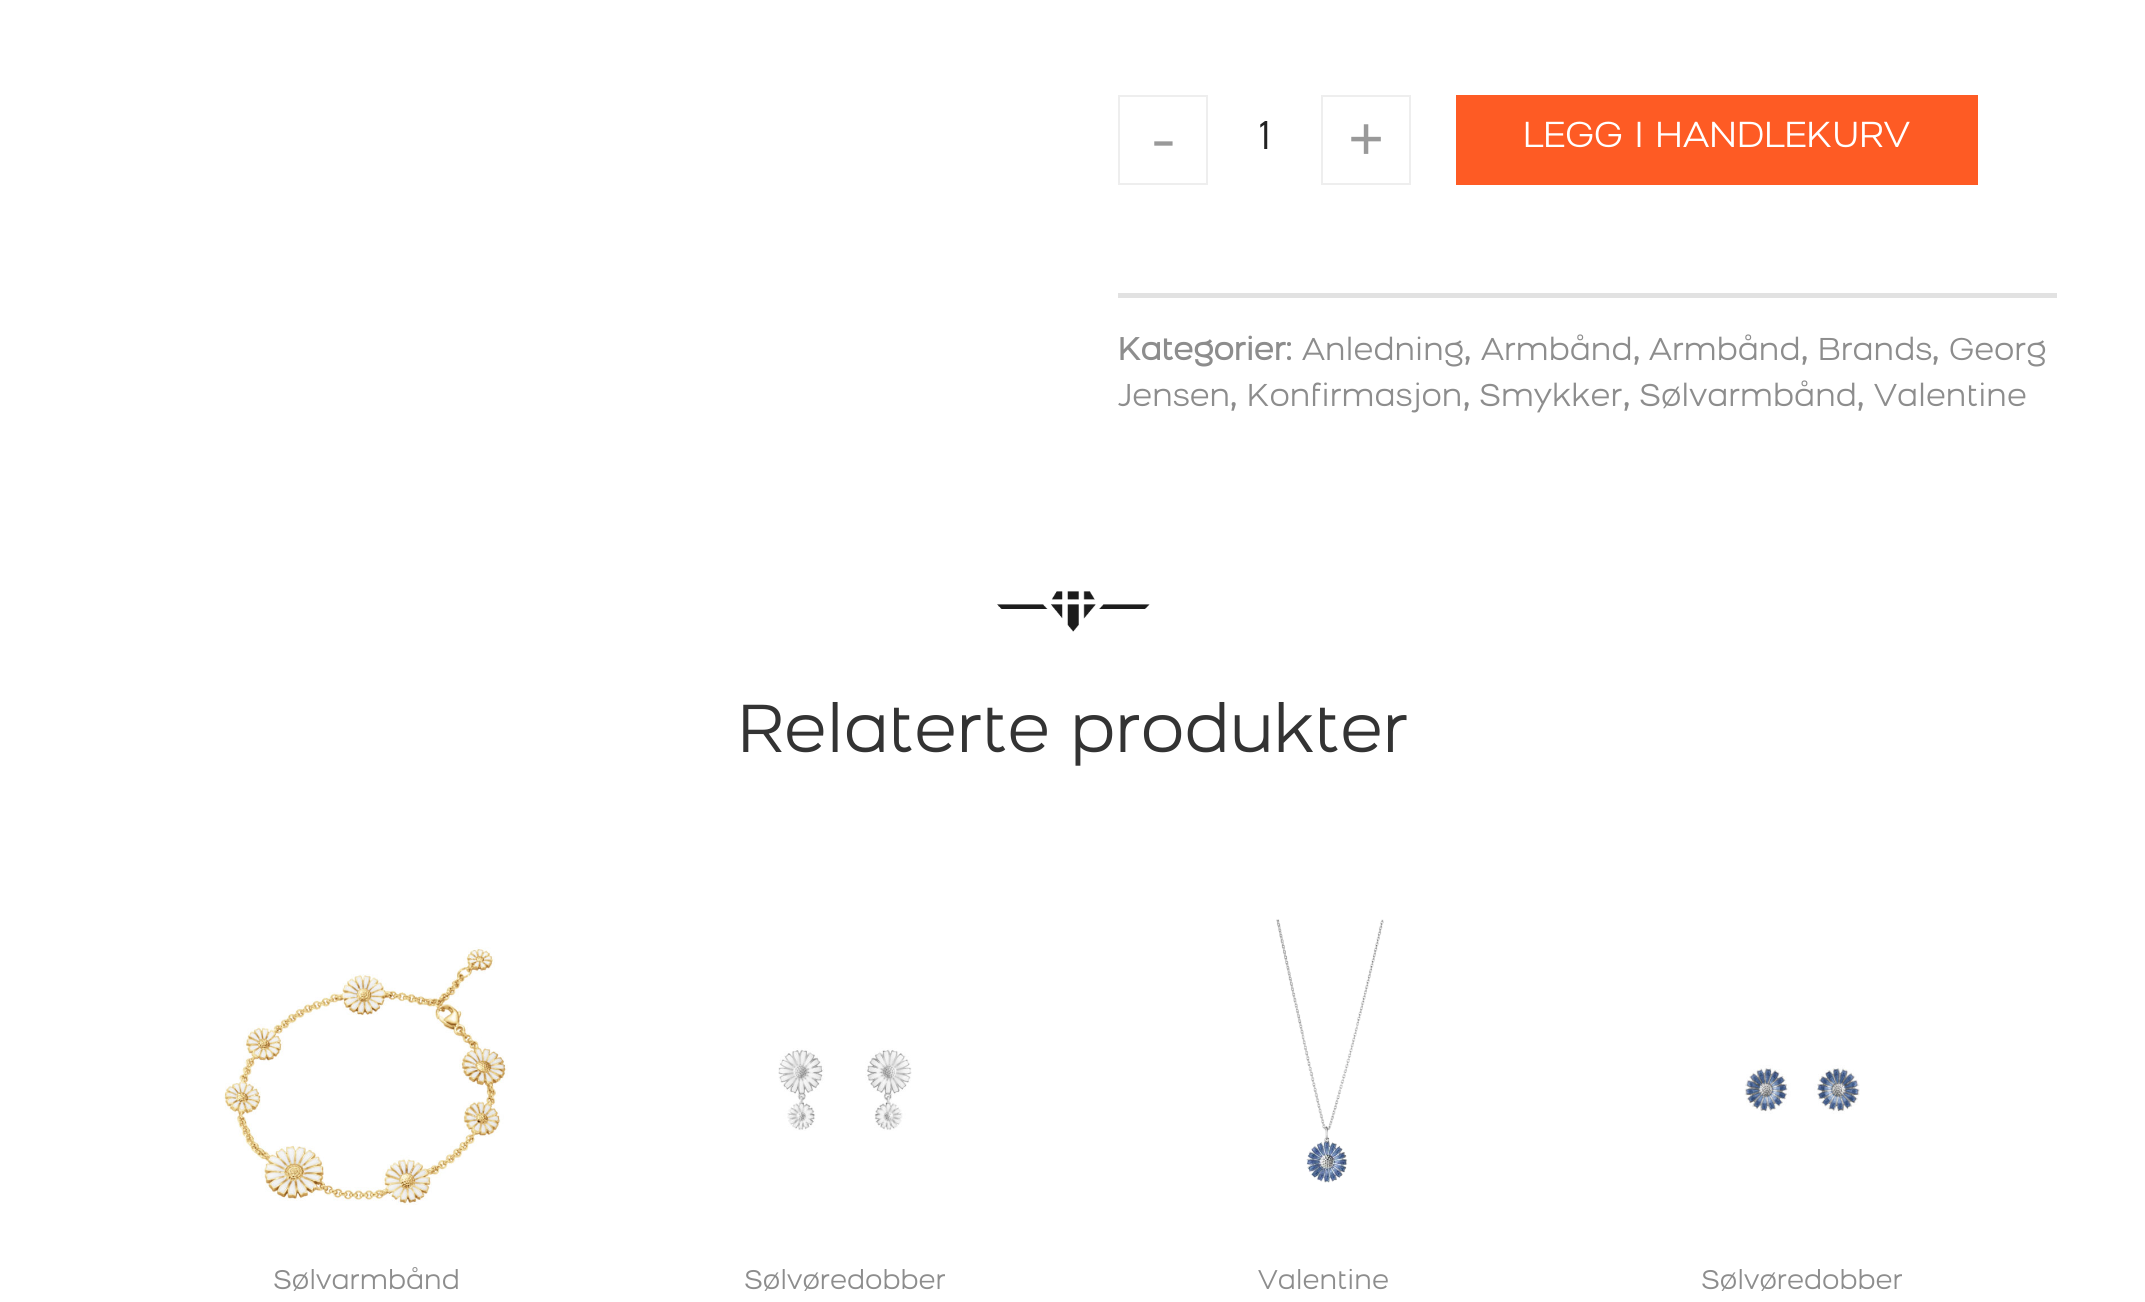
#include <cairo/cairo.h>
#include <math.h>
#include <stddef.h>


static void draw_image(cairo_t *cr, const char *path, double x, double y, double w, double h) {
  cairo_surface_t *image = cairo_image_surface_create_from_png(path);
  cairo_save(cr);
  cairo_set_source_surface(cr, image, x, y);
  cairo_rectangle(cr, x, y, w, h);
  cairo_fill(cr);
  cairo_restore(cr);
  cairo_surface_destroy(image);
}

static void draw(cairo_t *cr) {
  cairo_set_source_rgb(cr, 1, 1, 1);
  cairo_paint(cr);
  cairo_rectangle(cr, 1119, 96, 88, 88);
  cairo_set_source_rgb(cr, 238 / 255.0, 238 / 255.0, 238 / 255.0);
  cairo_stroke(cr);
  cairo_rectangle(cr, 1322, 96, 88, 88);
  cairo_stroke(cr);
  cairo_set_source_rgb(cr, 254 / 255.0, 91 / 255.0, 36 / 255.0);
  cairo_rectangle(cr, 1456, 95, 522, 90);
  cairo_fill(cr);
  cairo_set_source_rgb(cr, 226 / 255.0, 226 / 255.0, 226 / 255.0);
  cairo_rectangle(cr, 1118, 293, 939, 5);
  cairo_fill(cr);
  draw_image(cr, "images/1.png", 997, 591, 153, 41);
  draw_image(cr, "images/2.png", 223, 947, 285, 258);
  draw_image(cr, "images/3.png", 778, 1048, 134, 83);
  draw_image(cr, "images/4.png", 1276, 919, 108, 264);
  draw_image(cr, "images/5.png", 1744, 1065, 116, 49);
  cairo_select_font_face(cr, "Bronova", CAIRO_FONT_SLANT_NORMAL, CAIRO_FONT_WEIGHT_NORMAL);
  cairo_set_font_size(cr, 67.5);
  cairo_set_source_rgb(cr, 153 / 255.0, 153 / 255.0, 153 / 255.0);
  cairo_move_to(cr, 1149, 162);
  cairo_show_text(cr, "-");
  cairo_set_font_size(cr, 40);
  cairo_set_source_rgb(cr, 34 / 255.0, 34 / 255.0, 34 / 255.0);
  cairo_move_to(cr, 1259, 149);
  cairo_show_text(cr, "1");
  cairo_set_font_size(cr, 67.5);
  cairo_set_source_rgb(cr, 153 / 255.0, 153 / 255.0, 153 / 255.0);
  cairo_move_to(cr, 1346, 162);
  cairo_show_text(cr, "+");
  cairo_set_font_size(cr, 36);
  cairo_set_source_rgb(cr, 1, 1, 1);
  cairo_move_to(cr, 1523, 147);
  cairo_show_text(cr, "LEGG I HANDLEKURV");
  cairo_select_font_face(cr, "Bronova", CAIRO_FONT_SLANT_NORMAL, CAIRO_FONT_WEIGHT_BOLD);
  cairo_set_font_size(cr, 31.5);
  cairo_set_source_rgb(cr, 141 / 255.0, 141 / 255.0, 141 / 255.0);
  cairo_move_to(cr, 1118, 360);
  cairo_show_text(cr, "Kategorier:");
  cairo_select_font_face(cr, "Bronova", CAIRO_FONT_SLANT_NORMAL, CAIRO_FONT_WEIGHT_NORMAL);
  cairo_move_to(cr, 1302, 360);
  cairo_show_text(cr, "Anledning");
  cairo_select_font_face(cr, "Bronova", CAIRO_FONT_SLANT_NORMAL, CAIRO_FONT_WEIGHT_BOLD);
  cairo_move_to(cr, 1464, 360);
  cairo_show_text(cr, ",");
  cairo_select_font_face(cr, "Bronova", CAIRO_FONT_SLANT_NORMAL, CAIRO_FONT_WEIGHT_NORMAL);
  cairo_move_to(cr, 1481, 360);
  cairo_show_text(cr, "Armbånd");
  cairo_select_font_face(cr, "Bronova", CAIRO_FONT_SLANT_NORMAL, CAIRO_FONT_WEIGHT_BOLD);
  cairo_move_to(cr, 1633, 360);
  cairo_show_text(cr, ",");
  cairo_select_font_face(cr, "Bronova", CAIRO_FONT_SLANT_NORMAL, CAIRO_FONT_WEIGHT_NORMAL);
  cairo_move_to(cr, 1649, 360);
  cairo_show_text(cr, "Armbånd");
  cairo_select_font_face(cr, "Bronova", CAIRO_FONT_SLANT_NORMAL, CAIRO_FONT_WEIGHT_BOLD);
  cairo_move_to(cr, 1801, 360);
  cairo_show_text(cr, ",");
  cairo_select_font_face(cr, "Bronova", CAIRO_FONT_SLANT_NORMAL, CAIRO_FONT_WEIGHT_NORMAL);
  cairo_move_to(cr, 1818, 360);
  cairo_show_text(cr, "Brands");
  cairo_select_font_face(cr, "Bronova", CAIRO_FONT_SLANT_NORMAL, CAIRO_FONT_WEIGHT_BOLD);
  cairo_move_to(cr, 1932, 360);
  cairo_show_text(cr, ",");
  cairo_select_font_face(cr, "Bronova", CAIRO_FONT_SLANT_NORMAL, CAIRO_FONT_WEIGHT_NORMAL);
  cairo_move_to(cr, 1949, 360);
  cairo_show_text(cr, "Georg");
  cairo_move_to(cr, 1118, 406);
  cairo_show_text(cr, "Jensen");
  cairo_select_font_face(cr, "Bronova", CAIRO_FONT_SLANT_NORMAL, CAIRO_FONT_WEIGHT_BOLD);
  cairo_move_to(cr, 1230, 406);
  cairo_show_text(cr, ",");
  cairo_select_font_face(cr, "Bronova", CAIRO_FONT_SLANT_NORMAL, CAIRO_FONT_WEIGHT_NORMAL);
  cairo_move_to(cr, 1247, 406);
  cairo_show_text(cr, "Konfirmasjon");
  cairo_select_font_face(cr, "Bronova", CAIRO_FONT_SLANT_NORMAL, CAIRO_FONT_WEIGHT_BOLD);
  cairo_move_to(cr, 1463, 406);
  cairo_show_text(cr, ",");
  cairo_select_font_face(cr, "Bronova", CAIRO_FONT_SLANT_NORMAL, CAIRO_FONT_WEIGHT_NORMAL);
  cairo_move_to(cr, 1479, 406);
  cairo_show_text(cr, "Smykker");
  cairo_select_font_face(cr, "Bronova", CAIRO_FONT_SLANT_NORMAL, CAIRO_FONT_WEIGHT_BOLD);
  cairo_move_to(cr, 1623, 406);
  cairo_show_text(cr, ",");
  cairo_select_font_face(cr, "Bronova", CAIRO_FONT_SLANT_NORMAL, CAIRO_FONT_WEIGHT_NORMAL);
  cairo_move_to(cr, 1639, 406);
  cairo_show_text(cr, "Sølvarmbånd");
  cairo_select_font_face(cr, "Bronova", CAIRO_FONT_SLANT_NORMAL, CAIRO_FONT_WEIGHT_BOLD);
  cairo_move_to(cr, 1857, 406);
  cairo_show_text(cr, ",");
  cairo_select_font_face(cr, "Bronova", CAIRO_FONT_SLANT_NORMAL, CAIRO_FONT_WEIGHT_NORMAL);
  cairo_move_to(cr, 1874, 406);
  cairo_show_text(cr, "Valentine");
  cairo_set_font_size(cr, 67.5);
  cairo_set_source_rgb(cr, 51 / 255.0, 51 / 255.0, 51 / 255.0);
  cairo_move_to(cr, 738, 752);
  cairo_show_text(cr, "Relaterte produkter");
  cairo_set_font_size(cr, 27);
  cairo_set_source_rgb(cr, 141 / 255.0, 141 / 255.0, 141 / 255.0);
  cairo_move_to(cr, 273, 1289);
  cairo_show_text(cr, "Sølvarmbånd");
  cairo_move_to(cr, 744, 1289);
  cairo_show_text(cr, "Sølvøredobber");
  cairo_move_to(cr, 1258, 1289);
  cairo_show_text(cr, "Valentine");
  cairo_move_to(cr, 1701, 1289);
  cairo_show_text(cr, "Sølvøredobber");
}

int main(void) {
  cairo_surface_t *surface = cairo_image_surface_create(CAIRO_FORMAT_RGB24, 2145, 1302);
  cairo_t *cr = cairo_create(surface);
  cairo_font_options_t *options = cairo_font_options_create();
  cairo_font_options_set_hint_metrics(options, CAIRO_HINT_METRICS_OFF);
  cairo_font_options_set_hint_style(options, CAIRO_HINT_STYLE_NONE);
  cairo_set_font_options(cr, options);
  cairo_set_miter_limit(cr, 4);
  draw(cr);
  cairo_surface_write_to_png(surface, "out.png");
  cairo_font_options_destroy(options);
  cairo_destroy(cr);
  cairo_surface_destroy(surface);
  return 0;
}
